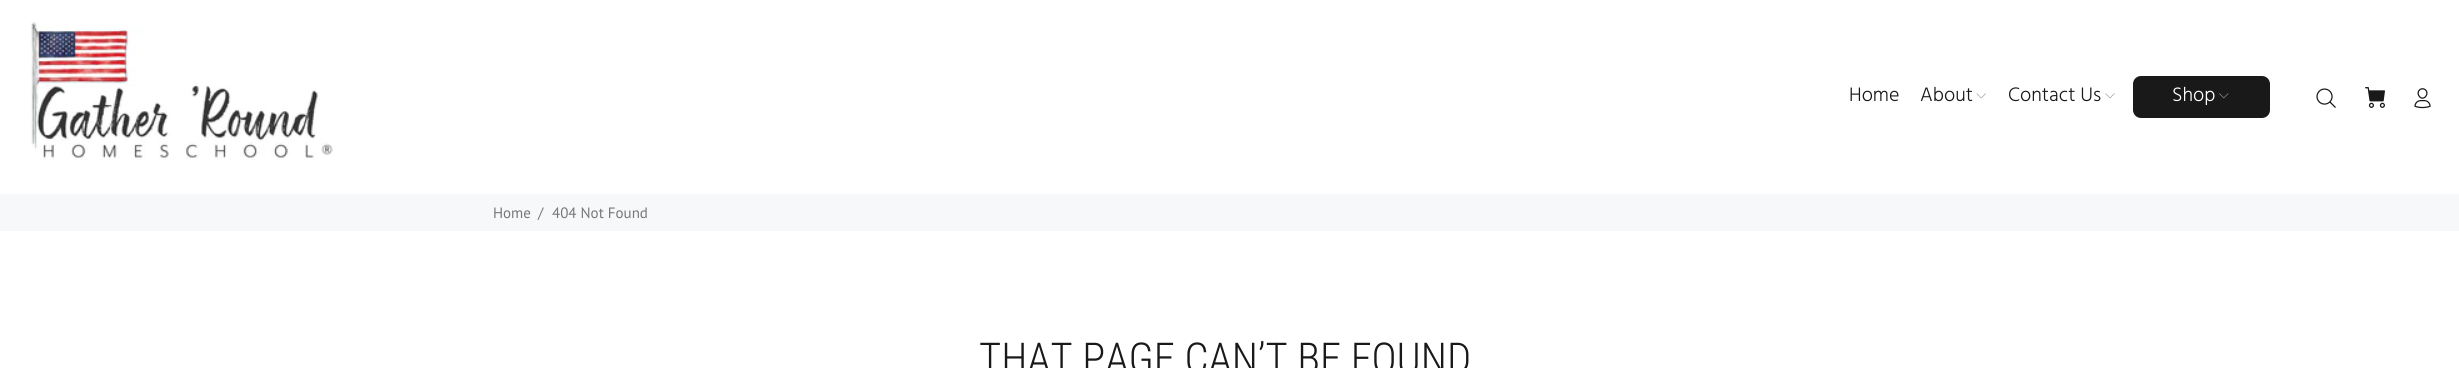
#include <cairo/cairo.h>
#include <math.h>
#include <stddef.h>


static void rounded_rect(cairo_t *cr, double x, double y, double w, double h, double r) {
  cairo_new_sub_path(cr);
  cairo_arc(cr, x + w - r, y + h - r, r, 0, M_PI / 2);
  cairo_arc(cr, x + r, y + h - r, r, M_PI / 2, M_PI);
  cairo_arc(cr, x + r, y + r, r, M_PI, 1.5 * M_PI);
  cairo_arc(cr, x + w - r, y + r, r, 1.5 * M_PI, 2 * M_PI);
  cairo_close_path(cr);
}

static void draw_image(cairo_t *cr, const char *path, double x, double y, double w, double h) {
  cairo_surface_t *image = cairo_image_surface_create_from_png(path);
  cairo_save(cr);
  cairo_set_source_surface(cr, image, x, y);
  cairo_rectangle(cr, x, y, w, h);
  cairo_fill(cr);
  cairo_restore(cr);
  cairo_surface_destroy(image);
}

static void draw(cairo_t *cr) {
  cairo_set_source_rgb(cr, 1, 1, 1);
  cairo_paint(cr);
  draw_image(cr, "images/1.png", 30, 22, 303, 138);
  draw_image(cr, "images/2.png", 1976, 93, 10, 6);
  draw_image(cr, "images/3.png", 2105, 93, 10, 6);
  cairo_set_source_rgb(cr, 25 / 255.0, 25 / 255.0, 25 / 255.0);
  rounded_rect(cr, 2133, 76, 137, 42, 8);
  cairo_fill(cr);
  draw_image(cr, "images/4.png", 2219, 93, 10, 6);
  draw_image(cr, "images/5.png", 2316, 88, 20, 20);
  draw_image(cr, "images/6.png", 2365, 87, 20, 21);
  draw_image(cr, "images/7.png", 2414, 88, 17, 21);
  cairo_set_source_rgb(cr, 247 / 255.0, 248 / 255.0, 250 / 255.0);
  cairo_rectangle(cr, 0, 194, 2459, 37);
  cairo_fill(cr);
  cairo_select_font_face(cr, "Hind Light", CAIRO_FONT_SLANT_NORMAL, CAIRO_FONT_WEIGHT_NORMAL);
  cairo_set_font_size(cr, 20);
  cairo_set_source_rgb(cr, 25 / 255.0, 25 / 255.0, 25 / 255.0);
  cairo_move_to(cr, 1849, 101);
  cairo_show_text(cr, "Home");
  cairo_move_to(cr, 1920, 101);
  cairo_show_text(cr, "About");
  cairo_move_to(cr, 2008, 101);
  cairo_show_text(cr, "Contact Us");
  cairo_set_source_rgb(cr, 1, 1, 1);
  cairo_move_to(cr, 2172, 101);
  cairo_show_text(cr, "Shop");
  cairo_select_font_face(cr, "PT Sans", CAIRO_FONT_SLANT_NORMAL, CAIRO_FONT_WEIGHT_NORMAL);
  cairo_set_font_size(cr, 15);
  cairo_set_source_rgb(cr, 119 / 255.0, 119 / 255.0, 119 / 255.0);
  cairo_move_to(cr, 493, 218);
  cairo_show_text(cr, "Home");
  cairo_move_to(cr, 538, 218);
  cairo_show_text(cr, "/");
  cairo_move_to(cr, 552, 218);
  cairo_show_text(cr, "404 Not Found");
  cairo_select_font_face(cr, "Roboto Condensed Light", CAIRO_FONT_SLANT_NORMAL, CAIRO_FONT_WEIGHT_NORMAL);
  cairo_set_font_size(cr, 42.5);
  cairo_set_source_rgb(cr, 25 / 255.0, 25 / 255.0, 25 / 255.0);
  cairo_move_to(cr, 979, 373);
  cairo_show_text(cr, "THAT PAGE CAN’T BE FOUND");
}

int main(void) {
  cairo_surface_t *surface = cairo_image_surface_create(CAIRO_FORMAT_RGB24, 2459, 368);
  cairo_t *cr = cairo_create(surface);
  cairo_font_options_t *options = cairo_font_options_create();
  cairo_font_options_set_hint_metrics(options, CAIRO_HINT_METRICS_OFF);
  cairo_font_options_set_hint_style(options, CAIRO_HINT_STYLE_NONE);
  cairo_set_font_options(cr, options);
  cairo_set_miter_limit(cr, 4);
  draw(cr);
  cairo_surface_write_to_png(surface, "out.png");
  cairo_font_options_destroy(options);
  cairo_destroy(cr);
  cairo_surface_destroy(surface);
  return 0;
}
